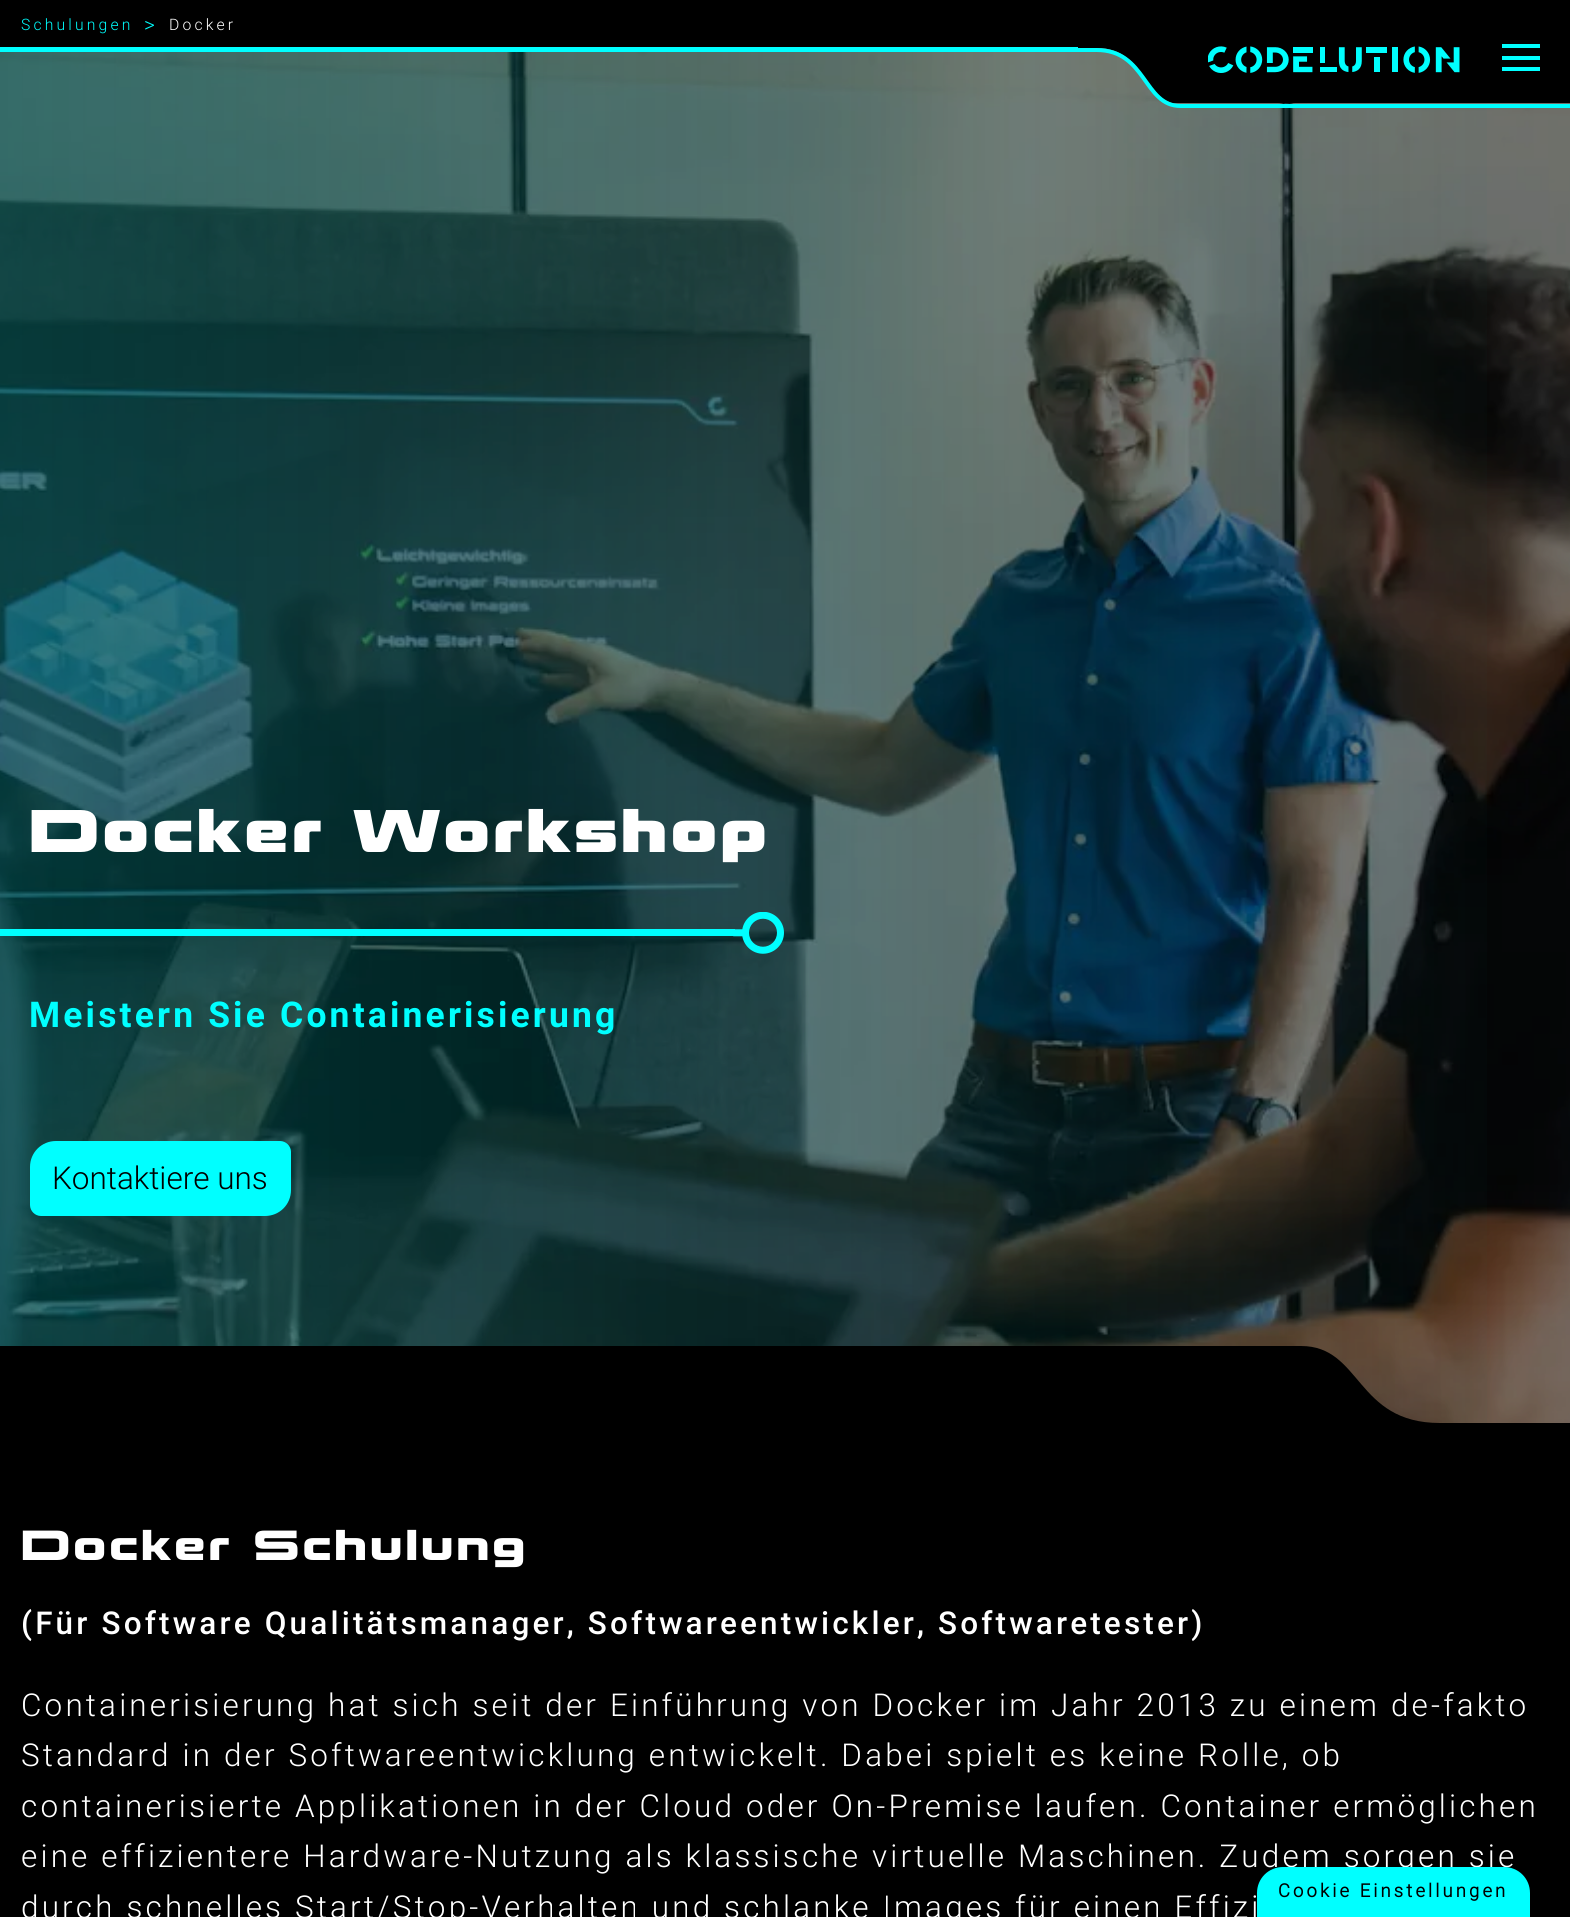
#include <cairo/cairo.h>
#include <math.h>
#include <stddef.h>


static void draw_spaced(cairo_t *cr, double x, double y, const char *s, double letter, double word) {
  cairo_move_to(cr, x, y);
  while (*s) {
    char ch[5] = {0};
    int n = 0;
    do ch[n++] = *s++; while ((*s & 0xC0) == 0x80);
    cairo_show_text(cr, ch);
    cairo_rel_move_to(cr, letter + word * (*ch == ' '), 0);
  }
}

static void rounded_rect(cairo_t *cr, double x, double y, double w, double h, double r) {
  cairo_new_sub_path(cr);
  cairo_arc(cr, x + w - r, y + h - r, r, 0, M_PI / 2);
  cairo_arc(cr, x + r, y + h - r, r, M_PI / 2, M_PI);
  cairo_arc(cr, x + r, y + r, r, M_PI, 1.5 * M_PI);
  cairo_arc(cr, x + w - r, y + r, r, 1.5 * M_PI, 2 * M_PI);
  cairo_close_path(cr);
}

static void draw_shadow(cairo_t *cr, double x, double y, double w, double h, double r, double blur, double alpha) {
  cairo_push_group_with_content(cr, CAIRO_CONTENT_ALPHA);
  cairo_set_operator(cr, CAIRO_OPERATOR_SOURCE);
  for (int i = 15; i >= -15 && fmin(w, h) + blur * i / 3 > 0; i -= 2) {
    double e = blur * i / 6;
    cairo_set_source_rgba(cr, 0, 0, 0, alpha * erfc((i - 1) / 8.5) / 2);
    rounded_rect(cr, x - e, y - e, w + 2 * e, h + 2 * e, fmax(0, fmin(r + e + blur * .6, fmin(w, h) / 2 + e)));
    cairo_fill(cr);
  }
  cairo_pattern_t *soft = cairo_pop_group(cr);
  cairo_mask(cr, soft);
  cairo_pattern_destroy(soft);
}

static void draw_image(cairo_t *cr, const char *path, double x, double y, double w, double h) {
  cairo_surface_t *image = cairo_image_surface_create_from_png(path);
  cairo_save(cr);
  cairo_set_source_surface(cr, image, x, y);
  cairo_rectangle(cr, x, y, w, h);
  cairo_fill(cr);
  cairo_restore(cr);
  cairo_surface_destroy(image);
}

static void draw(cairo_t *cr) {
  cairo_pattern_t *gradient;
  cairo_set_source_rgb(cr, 0, 0, 0);
  cairo_paint(cr);
  draw_image(cr, "images/2.png", 0, 48, 1570, 1375);
  gradient = cairo_pattern_create_linear(0, 715, 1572, 715);
  cairo_pattern_add_color_stop_rgba(gradient, 0, 0, 128 / 255.0, 128 / 255.0, 0.4);
  cairo_pattern_add_color_stop_rgba(gradient, 1, 0, 128 / 255.0, 128 / 255.0, 0);
  cairo_set_source(cr, gradient);
  cairo_pattern_destroy(gradient);
  cairo_rectangle(cr, 0, 48, 1487, 1375);
  cairo_fill(cr);
  cairo_set_source_rgb(cr, 0, 1, 1);
  cairo_rectangle(cr, 0, 47, 1078, 5);
  cairo_fill(cr);
  cairo_save(cr);
  cairo_rectangle(cr, 1078, 16, 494, 87);
  cairo_clip(cr);
  cairo_set_source_rgb(cr, 0, 0, 0);
  cairo_new_path(cr);
  cairo_move_to(cr, 1078, 48);
  cairo_line_to(cr, 1097, 48);
  cairo_curve_to(cr, 1146, 48, 1144, 104, 1180, 104);
  cairo_line_to(cr, 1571, 104);
  cairo_line_to(cr, 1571, 16);
  cairo_line_to(cr, 1078, 16);
  cairo_close_path(cr);
  cairo_fill(cr);
  cairo_restore(cr);
  cairo_new_path(cr);
  cairo_move_to(cr, 1078, 50);
  cairo_line_to(cr, 1096.5, 50);
  cairo_curve_to(cr, 1146.5, 50, 1143.5, 106, 1180.5, 106);
  cairo_line_to(cr, 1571, 106);
  cairo_set_line_width(cr, 4);
  cairo_stroke(cr);
  draw_image(cr, "images/1.png", 1208, 46, 252, 27);
  cairo_rectangle(cr, 1502, 44, 38, 4);
  cairo_fill(cr);
  cairo_rectangle(cr, 1502, 56, 38, 4);
  cairo_fill(cr);
  cairo_rectangle(cr, 1502, 67, 38, 4);
  cairo_fill(cr);
  cairo_rectangle(cr, 0, 929, 735, 7);
  cairo_fill(cr);
  draw_image(cr, "images/3.png", 733, 912, 51, 42);
  cairo_new_path(cr);
  cairo_move_to(cr, 56, 1141);
  cairo_line_to(cr, 280, 1141);
  cairo_curve_to(cr, 286, 1141, 291, 1146, 291, 1152);
  cairo_line_to(cr, 291, 1190);
  cairo_curve_to(cr, 291, 1204.5, 279.5, 1216, 265, 1216);
  cairo_line_to(cr, 41, 1216);
  cairo_curve_to(cr, 35, 1216, 30, 1211, 30, 1205);
  cairo_line_to(cr, 30, 1167);
  cairo_curve_to(cr, 30, 1152.5, 41.5, 1141, 56, 1141);
  cairo_close_path(cr);
  cairo_fill(cr);
  cairo_set_source_rgb(cr, 0, 0, 0);
  cairo_rectangle(cr, 0, 1346, 1283, 77);
  cairo_fill(cr);
  cairo_new_path(cr);
  cairo_move_to(cr, 1283, 1346);
  cairo_line_to(cr, 1301, 1346);
  cairo_curve_to(cr, 1362, 1346, 1355, 1423, 1440, 1423);
  cairo_line_to(cr, 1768, 1423);
  cairo_line_to(cr, 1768, 1472);
  cairo_line_to(cr, 1283, 1472);
  cairo_close_path(cr);
  cairo_fill(cr);
  cairo_set_source_rgb(cr, 0, 0, 0);
  draw_shadow(cr, 1257, 1871, 273, 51, 26, 5, 0.3);
  cairo_select_font_face(cr, "Roboto Light", CAIRO_FONT_SLANT_NORMAL, CAIRO_FONT_WEIGHT_NORMAL);
  cairo_set_font_size(cr, 15.75);
  cairo_set_source_rgb(cr, 0, 1, 1);
  draw_spaced(cr, 21, 30, "Schulungen", 3.15, 0);
  cairo_set_font_size(cr, 21);
  draw_spaced(cr, 144, 32, ">", 3.15, 0);
  cairo_set_font_size(cr, 15.75);
  cairo_set_source_rgb(cr, 1, 1, 1);
  draw_spaced(cr, 169, 30, "Docker", 3.15, 0);
  cairo_select_font_face(cr, "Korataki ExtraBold", CAIRO_FONT_SLANT_NORMAL, CAIRO_FONT_WEIGHT_NORMAL);
  cairo_set_font_size(cr, 52.5);
  draw_spaced(cr, 29, 852, "Docker Workshop", 3.15, 0);
  cairo_select_font_face(cr, "Roboto", CAIRO_FONT_SLANT_NORMAL, CAIRO_FONT_WEIGHT_BOLD);
  cairo_set_font_size(cr, 35.5);
  cairo_set_source_rgb(cr, 0, 1, 1);
  draw_spaced(cr, 29, 1027, "Meistern Sie Containerisierung", 3.15, 0);
  cairo_select_font_face(cr, "Roboto Light", CAIRO_FONT_SLANT_NORMAL, CAIRO_FONT_WEIGHT_NORMAL);
  cairo_set_font_size(cr, 31.5);
  cairo_set_source_rgb(cr, 0, 0, 0);
  cairo_move_to(cr, 52, 1189);
  cairo_show_text(cr, "Kontaktiere uns");
  cairo_select_font_face(cr, "Korataki", CAIRO_FONT_SLANT_NORMAL, CAIRO_FONT_WEIGHT_BOLD);
  cairo_set_font_size(cr, 36.75);
  cairo_set_source_rgb(cr, 1, 1, 1);
  draw_spaced(cr, 21, 1560, "Docker Schulung", 3.15, 0);
  cairo_select_font_face(cr, "Roboto Medium", CAIRO_FONT_SLANT_NORMAL, CAIRO_FONT_WEIGHT_NORMAL);
  cairo_set_font_size(cr, 31.5);
  draw_spaced(cr, 21, 1634, "(Für Software Qualitätsmanager, Softwareentwickler, Softwaretester)", 3.15, 0);
  cairo_select_font_face(cr, "Roboto Light", CAIRO_FONT_SLANT_NORMAL, CAIRO_FONT_WEIGHT_NORMAL);
  draw_spaced(cr, 21, 1716, "Containerisierung hat sich seit der Einführung von Docker im Jahr 2013 zu einem de-fakto", 3.15, 0);
  draw_spaced(cr, 21, 1766, "Standard in der Softwareentwicklung entwickelt. Dabei spielt es keine Rolle, ob", 3.15, 0);
  draw_spaced(cr, 21, 1817, "containerisierte Applikationen in der Cloud oder On-Premise laufen. Container ermöglichen", 3.15, 0);
  draw_spaced(cr, 21, 1867, "eine effizientere Hardware-Nutzung als klassische virtuelle Maschinen. Zudem sorgen sie", 3.15, 0);
  draw_spaced(cr, 21, 1918, "durch schnelles Start/Stop-Verhalten und schlanke Images für einen Effizi", 3.15, 0);
  cairo_set_source_rgb(cr, 0, 1, 1);
  cairo_new_path(cr);
  cairo_move_to(cr, 1283, 1867);
  cairo_line_to(cr, 1504, 1867);
  cairo_curve_to(cr, 1518.5, 1867, 1530, 1878.5, 1530, 1893);
  cairo_line_to(cr, 1530, 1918);
  cairo_line_to(cr, 1257, 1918);
  cairo_line_to(cr, 1257, 1893);
  cairo_curve_to(cr, 1257, 1878.5, 1268.5, 1867, 1283, 1867);
  cairo_close_path(cr);
  cairo_fill(cr);
  cairo_select_font_face(cr, "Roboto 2", CAIRO_FONT_SLANT_NORMAL, CAIRO_FONT_WEIGHT_BOLD);
  cairo_set_font_size(cr, 18.4);
  cairo_set_source_rgb(cr, 0, 0, 0);
  draw_spaced(cr, 1278, 1897, "Cookie Einstellungen", 3.15, 0);
}

int main(void) {
  cairo_surface_t *surface = cairo_image_surface_create(CAIRO_FORMAT_RGB24, 1570, 1917);
  cairo_t *cr = cairo_create(surface);
  cairo_font_options_t *options = cairo_font_options_create();
  cairo_font_options_set_hint_metrics(options, CAIRO_HINT_METRICS_OFF);
  cairo_font_options_set_hint_style(options, CAIRO_HINT_STYLE_NONE);
  cairo_set_font_options(cr, options);
  cairo_set_miter_limit(cr, 4);
  draw(cr);
  cairo_surface_write_to_png(surface, "out.png");
  cairo_font_options_destroy(options);
  cairo_destroy(cr);
  cairo_surface_destroy(surface);
  return 0;
}
